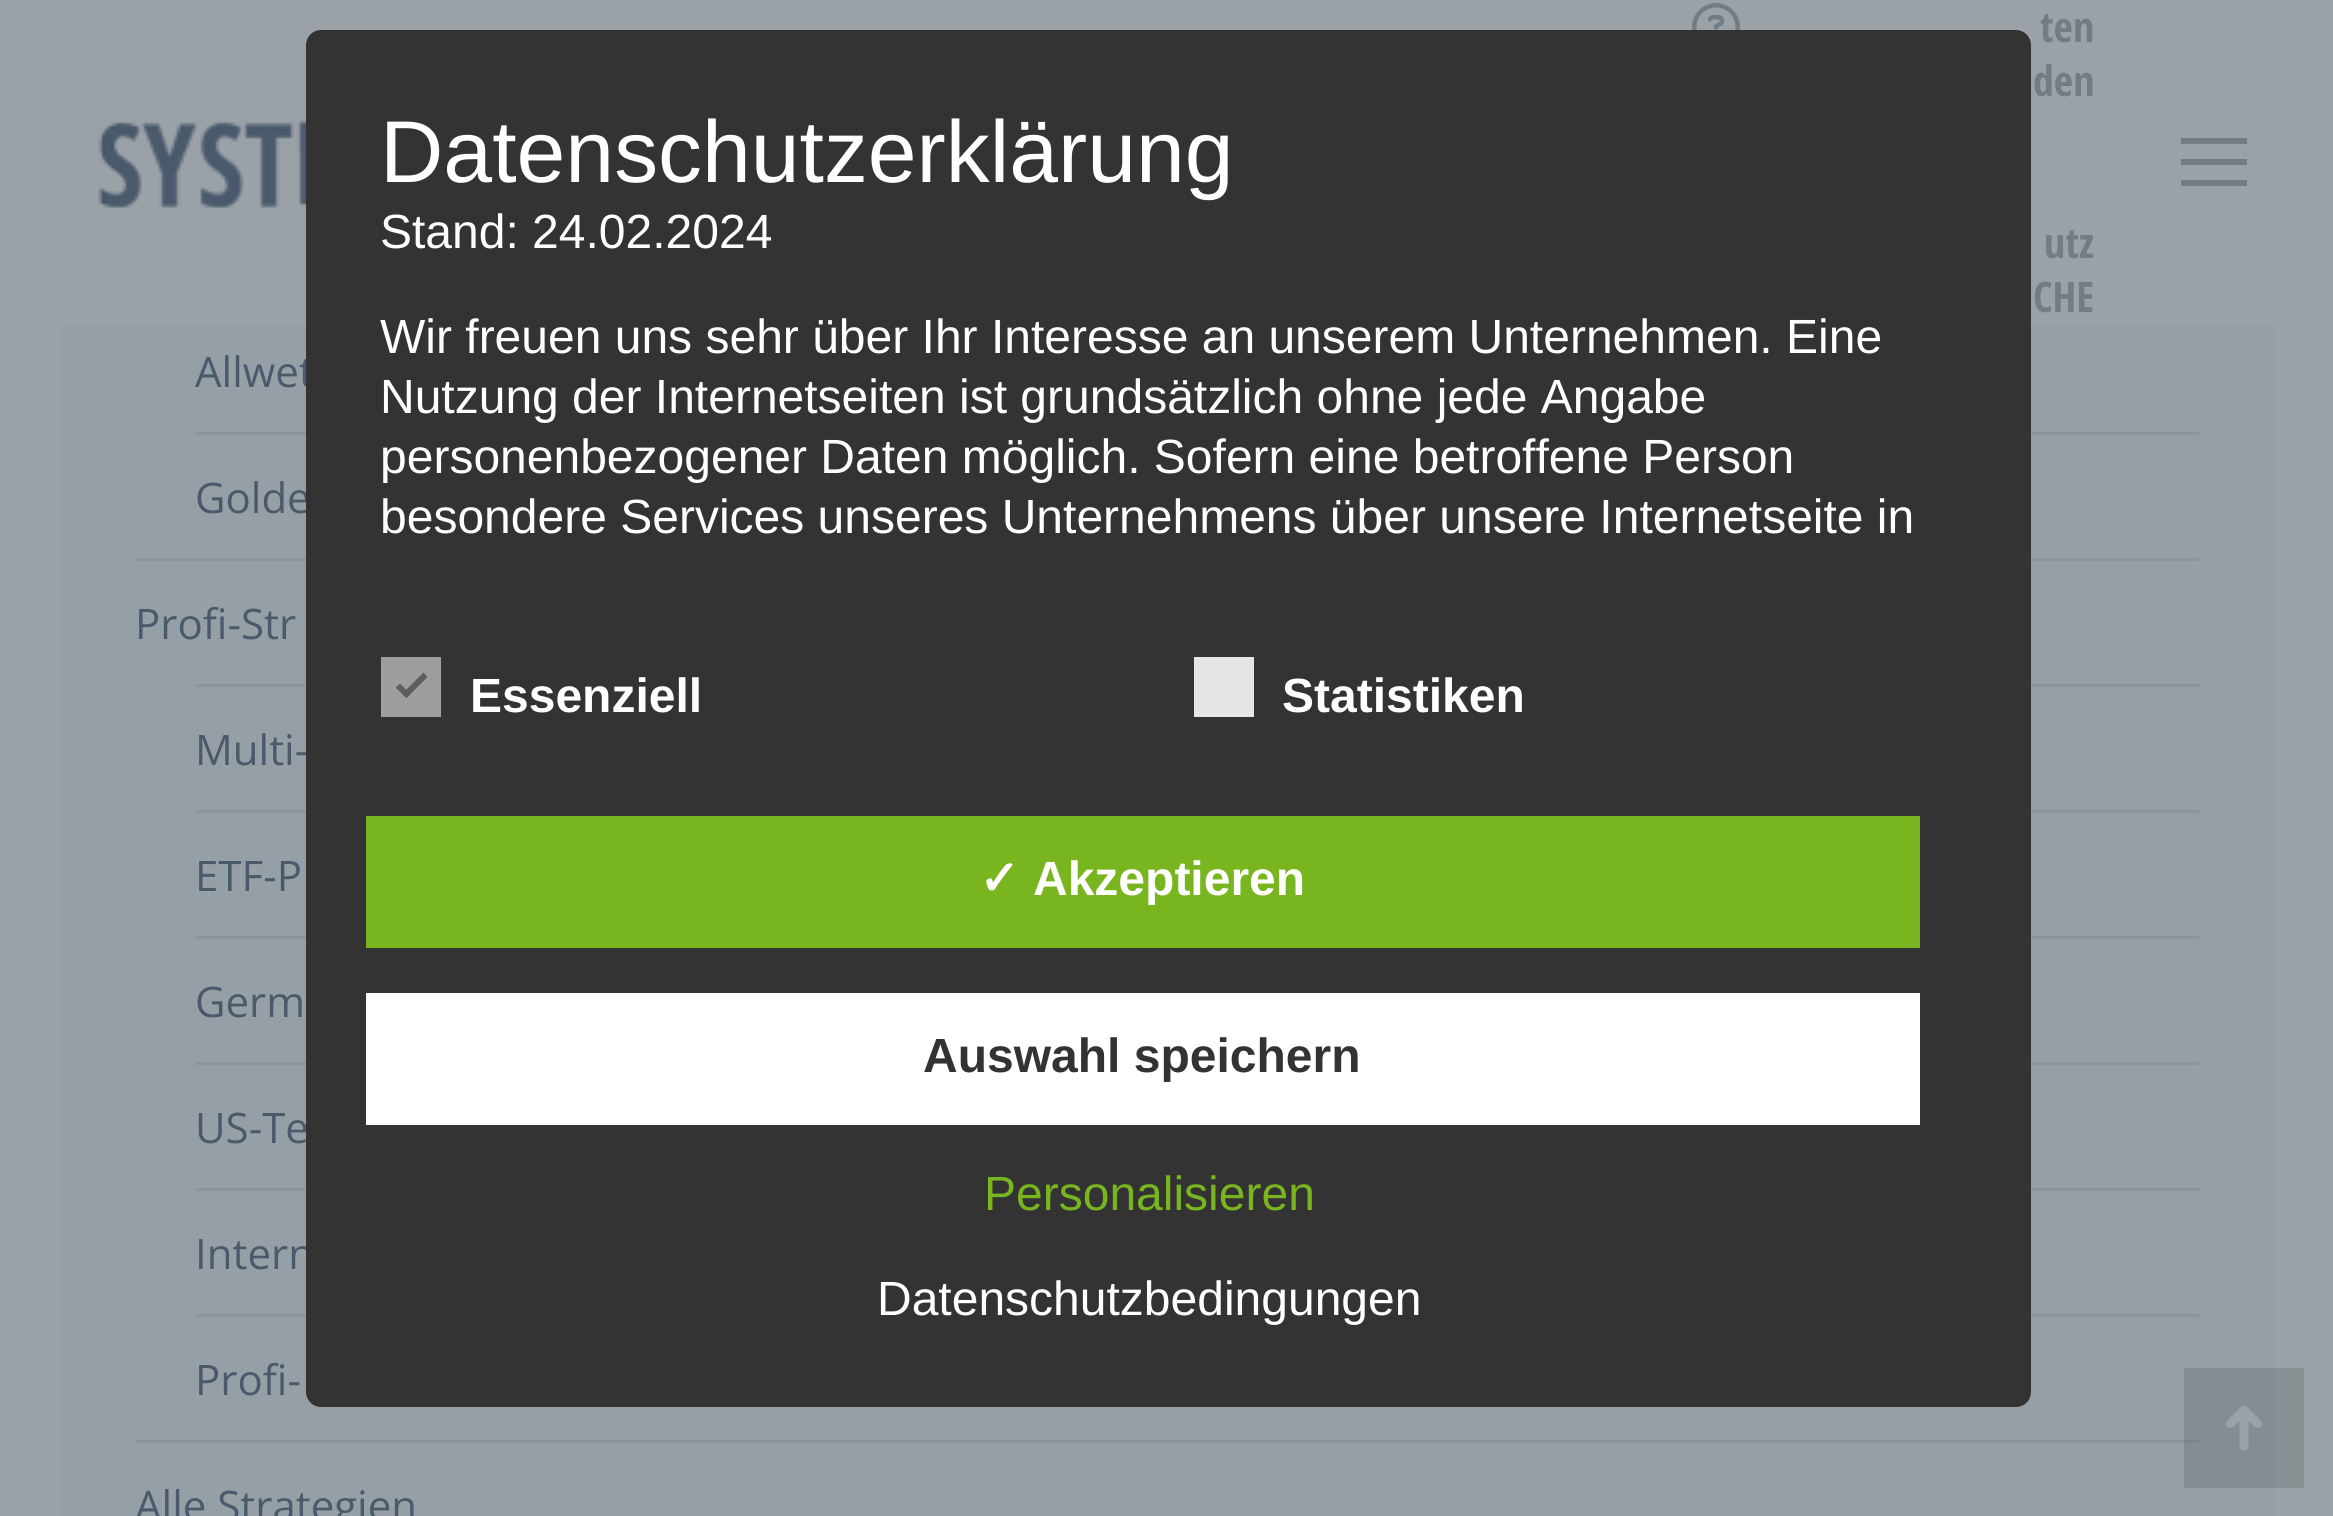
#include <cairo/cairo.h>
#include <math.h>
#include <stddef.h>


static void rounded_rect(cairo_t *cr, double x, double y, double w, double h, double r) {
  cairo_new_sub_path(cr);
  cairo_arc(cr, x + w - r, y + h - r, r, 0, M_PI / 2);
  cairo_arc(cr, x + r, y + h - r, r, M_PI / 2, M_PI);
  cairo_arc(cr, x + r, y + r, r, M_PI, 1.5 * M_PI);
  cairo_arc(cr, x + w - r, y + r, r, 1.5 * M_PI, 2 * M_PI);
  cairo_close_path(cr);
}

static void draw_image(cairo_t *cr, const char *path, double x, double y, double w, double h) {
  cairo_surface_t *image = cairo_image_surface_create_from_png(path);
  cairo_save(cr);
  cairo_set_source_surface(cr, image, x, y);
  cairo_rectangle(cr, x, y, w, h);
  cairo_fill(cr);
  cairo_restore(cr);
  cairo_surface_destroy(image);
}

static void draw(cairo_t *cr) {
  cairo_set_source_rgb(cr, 155 / 255.0, 162 / 255.0, 167 / 255.0);
  cairo_paint(cr);
  cairo_set_source_rgb(cr, 136 / 255.0, 144 / 255.0, 148 / 255.0);
  cairo_rectangle(cr, 2274, 1368, 30, 120);
  cairo_fill(cr);
  draw_image(cr, "images/1.png", 98, 119, 208, 92);
  draw_image(cr, "images/2.png", 1692, 3, 48, 27);
  cairo_set_source_rgb(cr, 113 / 255.0, 124 / 255.0, 133 / 255.0);
  cairo_rectangle(cr, 2181, 138, 66, 6);
  cairo_fill(cr);
  cairo_rectangle(cr, 2181, 159, 66, 6);
  cairo_fill(cr);
  cairo_rectangle(cr, 2181, 180, 66, 6);
  cairo_fill(cr);
  cairo_set_source_rgb(cr, 151 / 255.0, 159 / 255.0, 166 / 255.0);
  cairo_rectangle(cr, 60, 324, 2214, 1192);
  cairo_fill(cr);
  cairo_set_source_rgb(cr, 133 / 255.0, 141 / 255.0, 148 / 255.0);
  cairo_rectangle(cr, 2184, 1368, 90, 120);
  cairo_fill(cr);
  cairo_set_source_rgb(cr, 139 / 255.0, 149 / 255.0, 157 / 255.0);
  cairo_rectangle(cr, 195, 432, 2004, 3);
  cairo_fill(cr);
  cairo_rectangle(cr, 135, 558, 2064, 3);
  cairo_fill(cr);
  cairo_rectangle(cr, 195, 684, 2004, 3);
  cairo_fill(cr);
  cairo_rectangle(cr, 195, 810, 2004, 3);
  cairo_fill(cr);
  cairo_rectangle(cr, 195, 936, 2004, 3);
  cairo_fill(cr);
  cairo_rectangle(cr, 195, 1062, 2004, 3);
  cairo_fill(cr);
  cairo_rectangle(cr, 195, 1188, 2004, 3);
  cairo_fill(cr);
  cairo_rectangle(cr, 195, 1314, 2004, 3);
  cairo_fill(cr);
  cairo_rectangle(cr, 135, 1440, 2049, 3);
  cairo_fill(cr);
  cairo_set_source_rgb(cr, 124 / 255.0, 133 / 255.0, 140 / 255.0);
  cairo_rectangle(cr, 2184, 1440, 15, 3);
  cairo_fill(cr);
  draw_image(cr, "images/3.png", 2226, 1405, 36, 46);
  cairo_select_font_face(cr, "Open Sans Condensed", CAIRO_FONT_SLANT_NORMAL, CAIRO_FONT_WEIGHT_BOLD);
  cairo_set_font_size(cr, 42);
  cairo_set_source_rgb(cr, 113 / 255.0, 124 / 255.0, 133 / 255.0);
  cairo_move_to(cr, 2040, 42);
  cairo_show_text(cr, "ten");
  cairo_move_to(cr, 2033, 96);
  cairo_show_text(cr, "den");
  cairo_move_to(cr, 2044, 258);
  cairo_show_text(cr, "utz");
  cairo_move_to(cr, 2033, 312);
  cairo_show_text(cr, "CHE");
  cairo_select_font_face(cr, "Open Sans", CAIRO_FONT_SLANT_NORMAL, CAIRO_FONT_WEIGHT_NORMAL);
  cairo_set_source_rgb(cr, 74 / 255.0, 90 / 255.0, 108 / 255.0);
  cairo_move_to(cr, 195, 387);
  cairo_show_text(cr, "Allwet");
  cairo_move_to(cr, 195, 513);
  cairo_show_text(cr, "Golde");
  cairo_move_to(cr, 135, 639);
  cairo_show_text(cr, "Profi-Str");
  cairo_move_to(cr, 195, 765);
  cairo_show_text(cr, "Multi-");
  cairo_move_to(cr, 195, 891);
  cairo_show_text(cr, "ETF-P");
  cairo_move_to(cr, 195, 1017);
  cairo_show_text(cr, "Germ");
  cairo_move_to(cr, 195, 1143);
  cairo_show_text(cr, "US-Te");
  cairo_move_to(cr, 195, 1269);
  cairo_show_text(cr, "Intern");
  cairo_move_to(cr, 195, 1395);
  cairo_show_text(cr, "Profi-");
  cairo_move_to(cr, 135, 1521);
  cairo_show_text(cr, "Alle Strategien");
  cairo_set_source_rgb(cr, 51 / 255.0, 51 / 255.0, 51 / 255.0);
  rounded_rect(cr, 306, 30, 1725, 1377, 15);
  cairo_fill(cr);
  cairo_select_font_face(cr, "Liberation Sans", CAIRO_FONT_SLANT_NORMAL, CAIRO_FONT_WEIGHT_NORMAL);
  cairo_set_font_size(cr, 87.75);
  cairo_set_source_rgb(cr, 1, 1, 1);
  cairo_move_to(cr, 380, 182);
  cairo_show_text(cr, "Datenschutzerklärung");
  cairo_set_font_size(cr, 48);
  cairo_move_to(cr, 380, 248);
  cairo_show_text(cr, "Stand: 24.02.2024");
  cairo_move_to(cr, 380, 353);
  cairo_show_text(cr, "Wir freuen uns sehr über Ihr Interesse an unserem Unternehmen. Eine");
  cairo_move_to(cr, 380, 413);
  cairo_show_text(cr, "Nutzung der Internetseiten ist grundsätzlich ohne jede Angabe");
  cairo_move_to(cr, 380, 473);
  cairo_show_text(cr, "personenbezogener Daten möglich. Sofern eine betroffene Person");
  cairo_move_to(cr, 380, 533);
  cairo_show_text(cr, "besondere Services unseres Unternehmens über unsere Internetseite in");
  cairo_set_source_rgb(cr, 158 / 255.0, 158 / 255.0, 158 / 255.0);
  cairo_rectangle(cr, 381, 657, 60, 60);
  cairo_fill(cr);
  cairo_set_source_rgb(cr, 94 / 255.0, 94 / 255.0, 94 / 255.0);
  cairo_new_path(cr);
  cairo_move_to(cr, 423.5, 672.5);
  cairo_line_to(cr, 427.5, 677);
  cairo_line_to(cr, 406.5, 698);
  cairo_line_to(cr, 402, 694);
  cairo_close_path(cr);
  cairo_fill(cr);
  cairo_new_path(cr);
  cairo_move_to(cr, 400, 683.5);
  cairo_line_to(cr, 410.5, 694);
  cairo_line_to(cr, 406.5, 698);
  cairo_line_to(cr, 395.5, 687.5);
  cairo_close_path(cr);
  cairo_fill(cr);
  cairo_select_font_face(cr, "Liberation Sans", CAIRO_FONT_SLANT_NORMAL, CAIRO_FONT_WEIGHT_BOLD);
  cairo_set_source_rgb(cr, 1, 1, 1);
  cairo_move_to(cr, 470, 712);
  cairo_show_text(cr, "Essenziell");
  cairo_set_source_rgb(cr, 230 / 255.0, 230 / 255.0, 230 / 255.0);
  cairo_rectangle(cr, 1194, 657, 60, 60);
  cairo_fill(cr);
  cairo_set_source_rgb(cr, 1, 1, 1);
  cairo_move_to(cr, 1282, 712);
  cairo_show_text(cr, "Statistiken");
  cairo_set_source_rgb(cr, 121 / 255.0, 181 / 255.0, 31 / 255.0);
  cairo_rectangle(cr, 366, 816, 1554, 132);
  cairo_fill(cr);
  cairo_select_font_face(cr, "DejaVu Sans", CAIRO_FONT_SLANT_NORMAL, CAIRO_FONT_WEIGHT_BOLD);
  cairo_set_source_rgb(cr, 1, 1, 1);
  cairo_move_to(cr, 979, 895);
  cairo_show_text(cr, "✓");
  cairo_select_font_face(cr, "Liberation Sans", CAIRO_FONT_SLANT_NORMAL, CAIRO_FONT_WEIGHT_BOLD);
  cairo_move_to(cr, 1033, 895);
  cairo_show_text(cr, "Akzeptieren");
  cairo_rectangle(cr, 366, 993, 1554, 132);
  cairo_fill(cr);
  cairo_set_source_rgb(cr, 51 / 255.0, 51 / 255.0, 51 / 255.0);
  cairo_move_to(cr, 923, 1072);
  cairo_show_text(cr, "Auswahl speichern");
  cairo_select_font_face(cr, "Liberation Sans", CAIRO_FONT_SLANT_NORMAL, CAIRO_FONT_WEIGHT_NORMAL);
  cairo_set_source_rgb(cr, 121 / 255.0, 181 / 255.0, 31 / 255.0);
  cairo_move_to(cr, 984, 1210);
  cairo_show_text(cr, "Personalisieren");
  cairo_set_source_rgb(cr, 1, 1, 1);
  cairo_move_to(cr, 877, 1315);
  cairo_show_text(cr, "Datenschutzbedingungen");
}

int main(void) {
  cairo_surface_t *surface = cairo_image_surface_create(CAIRO_FORMAT_RGB24, 2333, 1516);
  cairo_t *cr = cairo_create(surface);
  cairo_font_options_t *options = cairo_font_options_create();
  cairo_font_options_set_hint_metrics(options, CAIRO_HINT_METRICS_OFF);
  cairo_font_options_set_hint_style(options, CAIRO_HINT_STYLE_NONE);
  cairo_set_font_options(cr, options);
  cairo_set_miter_limit(cr, 4);
  draw(cr);
  cairo_surface_write_to_png(surface, "out.png");
  cairo_font_options_destroy(options);
  cairo_destroy(cr);
  cairo_surface_destroy(surface);
  return 0;
}
